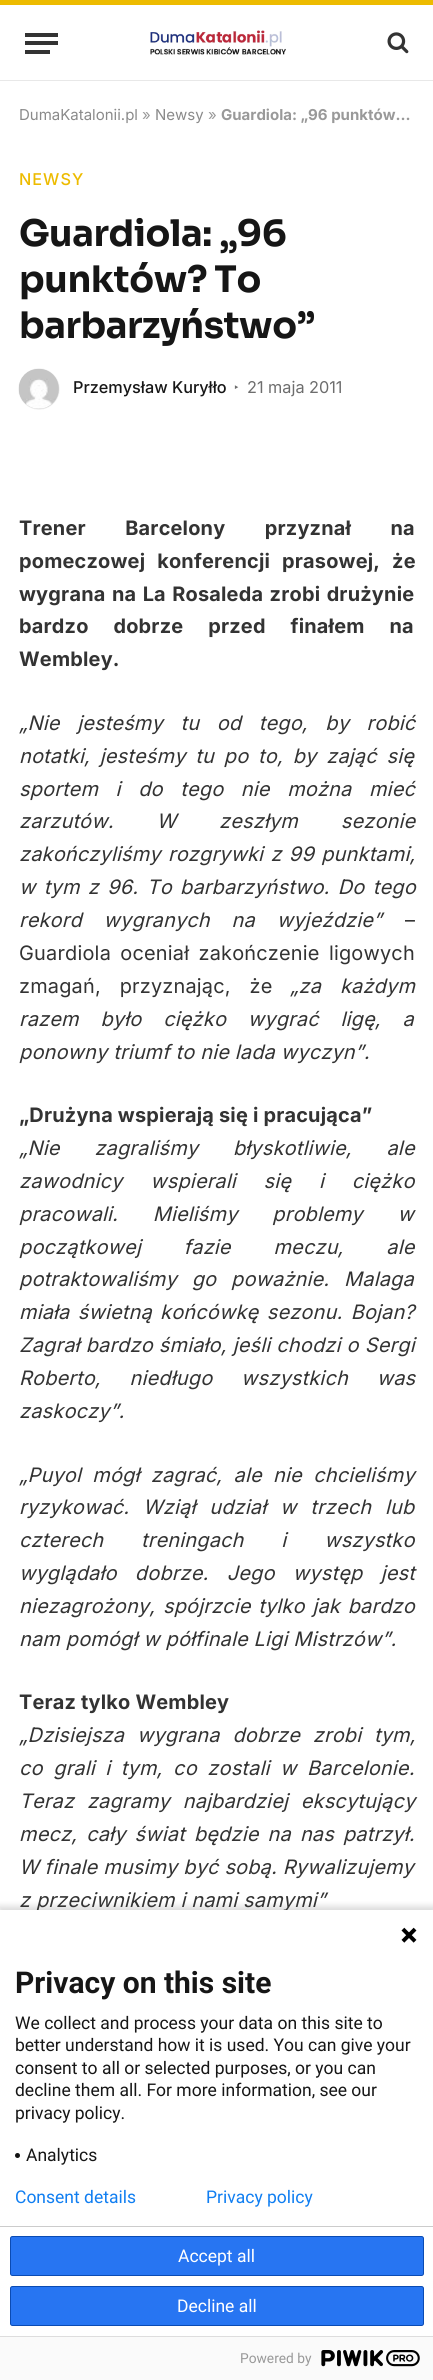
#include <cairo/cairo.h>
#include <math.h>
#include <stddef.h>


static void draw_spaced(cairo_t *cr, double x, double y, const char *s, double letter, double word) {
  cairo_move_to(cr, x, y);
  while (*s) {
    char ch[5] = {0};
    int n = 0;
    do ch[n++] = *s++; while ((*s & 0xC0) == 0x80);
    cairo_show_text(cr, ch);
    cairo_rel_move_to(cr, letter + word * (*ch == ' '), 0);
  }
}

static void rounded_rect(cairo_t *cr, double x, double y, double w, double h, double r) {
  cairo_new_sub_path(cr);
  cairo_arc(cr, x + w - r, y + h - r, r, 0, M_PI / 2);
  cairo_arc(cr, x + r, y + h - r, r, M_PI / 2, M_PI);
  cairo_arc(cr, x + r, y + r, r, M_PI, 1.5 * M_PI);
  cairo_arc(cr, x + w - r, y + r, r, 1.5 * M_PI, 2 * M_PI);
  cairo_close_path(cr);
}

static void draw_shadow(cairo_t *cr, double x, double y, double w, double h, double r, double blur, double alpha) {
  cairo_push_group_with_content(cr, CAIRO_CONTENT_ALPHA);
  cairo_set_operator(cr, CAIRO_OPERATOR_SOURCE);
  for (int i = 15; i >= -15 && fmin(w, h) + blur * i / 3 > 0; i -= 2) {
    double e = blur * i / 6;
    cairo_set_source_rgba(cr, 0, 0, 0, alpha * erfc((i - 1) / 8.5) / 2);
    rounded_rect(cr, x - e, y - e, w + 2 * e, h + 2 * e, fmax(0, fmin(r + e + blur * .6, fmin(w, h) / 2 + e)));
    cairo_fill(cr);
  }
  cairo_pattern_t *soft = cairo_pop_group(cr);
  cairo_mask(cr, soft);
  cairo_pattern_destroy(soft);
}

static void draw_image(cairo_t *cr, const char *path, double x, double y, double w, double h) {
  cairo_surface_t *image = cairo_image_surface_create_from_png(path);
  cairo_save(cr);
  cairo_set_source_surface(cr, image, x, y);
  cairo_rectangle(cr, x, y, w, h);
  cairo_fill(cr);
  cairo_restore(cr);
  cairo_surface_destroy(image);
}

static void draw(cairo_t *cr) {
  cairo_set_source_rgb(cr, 1, 1, 1);
  cairo_paint(cr);
  cairo_set_source_rgb(cr, 237 / 255.0, 187 / 255.0, 0);
  cairo_rectangle(cr, 0, 0, 433, 5);
  cairo_fill(cr);
  cairo_set_source_rgb(cr, 232 / 255.0, 232 / 255.0, 232 / 255.0);
  cairo_rectangle(cr, 0, 80, 433, 1);
  cairo_fill(cr);
  cairo_set_source_rgb(cr, 51 / 255.0, 51 / 255.0, 51 / 255.0);
  cairo_rectangle(cr, 25, 50, 25, 4);
  cairo_fill(cr);
  cairo_rectangle(cr, 25, 33, 33, 4);
  cairo_fill(cr);
  cairo_rectangle(cr, 25, 41, 33, 4);
  cairo_fill(cr);
  draw_image(cr, "images/1.png", 150, 30, 136, 25);
  draw_image(cr, "images/2.png", 387, 32, 22, 22);
  cairo_set_source_rgb(cr, 0, 0, 0);
  draw_shadow(cr, 19, 369, 40, 40, 20, 0.5, 0.2);
  draw_image(cr, "images/3.png", 19, 369, 40, 40);
  draw_shadow(cr, -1, 1906, 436, 473, 0, 3, 0.14);
  cairo_set_source_rgb(cr, 250 / 255.0, 250 / 255.0, 250 / 255.0);
  cairo_rectangle(cr, 0, 2337, 433, 43);
  cairo_fill(cr);
  cairo_set_source_rgb(cr, 221 / 255.0, 221 / 255.0, 221 / 255.0);
  cairo_rectangle(cr, 0, 2336, 433, 1);
  cairo_fill(cr);
  draw_image(cr, "images/5.png", 321, 2350, 99, 17);
  cairo_select_font_face(cr, "Inter", CAIRO_FONT_SLANT_NORMAL, CAIRO_FONT_WEIGHT_NORMAL);
  cairo_set_font_size(cr, 15);
  cairo_set_source_rgb(cr, 138 / 255.0, 138 / 255.0, 138 / 255.0);
  cairo_move_to(cr, 19, 120);
  cairo_show_text(cr, "DumaKatalonii.pl");
  cairo_set_source_rgb(cr, 153 / 255.0, 153 / 255.0, 153 / 255.0);
  cairo_move_to(cr, 142, 120);
  cairo_show_text(cr, "»");
  cairo_set_source_rgb(cr, 138 / 255.0, 138 / 255.0, 138 / 255.0);
  cairo_move_to(cr, 155, 120);
  cairo_show_text(cr, "Newsy");
  cairo_set_source_rgb(cr, 153 / 255.0, 153 / 255.0, 153 / 255.0);
  cairo_move_to(cr, 208, 120);
  cairo_show_text(cr, "»");
  cairo_select_font_face(cr, "Inter", CAIRO_FONT_SLANT_NORMAL, CAIRO_FONT_WEIGHT_BOLD);
  cairo_move_to(cr, 221, 120);
  cairo_show_text(cr, "Guardiola: „96 punktów…");
  cairo_select_font_face(cr, "Inter Medium", CAIRO_FONT_SLANT_NORMAL, CAIRO_FONT_WEIGHT_NORMAL);
  cairo_set_font_size(cr, 16.25);
  cairo_set_source_rgb(cr, 237 / 255.0, 187 / 255.0, 0);
  draw_spaced(cr, 19, 185, "NEWSY", 1, 0);
  cairo_select_font_face(cr, "Sora", CAIRO_FONT_SLANT_NORMAL, CAIRO_FONT_WEIGHT_BOLD);
  cairo_set_font_size(cr, 36.5);
  cairo_set_source_rgb(cr, 22 / 255.0, 22 / 255.0, 22 / 255.0);
  draw_spaced(cr, 19, 246, "Guardiola: „96", -0.4, 0);
  draw_spaced(cr, 19, 292, "punktów? To", -0.4, 0);
  draw_spaced(cr, 19, 338, "barbarzyństwo”", -0.4, 0);
  cairo_select_font_face(cr, "Inter Medium", CAIRO_FONT_SLANT_NORMAL, CAIRO_FONT_WEIGHT_NORMAL);
  cairo_set_font_size(cr, 16.25);
  cairo_move_to(cr, 73, 393);
  cairo_show_text(cr, "Przemysław Kuryłło");
  cairo_select_font_face(cr, "Noto Sans", CAIRO_FONT_SLANT_NORMAL, CAIRO_FONT_WEIGHT_NORMAL);
  cairo_set_font_size(cr, 13);
  cairo_set_source_rgb(cr, 109 / 255.0, 109 / 255.0, 109 / 255.0);
  cairo_move_to(cr, 234, 392);
  cairo_show_text(cr, "‣");
  cairo_select_font_face(cr, "Inter", CAIRO_FONT_SLANT_NORMAL, CAIRO_FONT_WEIGHT_NORMAL);
  cairo_set_font_size(cr, 16.25);
  cairo_move_to(cr, 247, 393);
  cairo_show_text(cr, "21 maja 2011");
  cairo_select_font_face(cr, "Inter", CAIRO_FONT_SLANT_NORMAL, CAIRO_FONT_WEIGHT_BOLD);
  cairo_set_font_size(cr, 19.9);
  cairo_set_source_rgb(cr, 51 / 255.0, 51 / 255.0, 51 / 255.0);
  draw_spaced(cr, 19, 535, "Trener Barcelony przyznał na", 0.2, 34.5);
  draw_spaced(cr, 19, 568, "pomeczowej konferencji prasowej, że", 0.2, 7);
  draw_spaced(cr, 19, 601, "wygrana na La Rosaleda zrobi drużynie", 0.2, 1.5);
  draw_spaced(cr, 19, 633, "bardzo dobrze przed finałem na", 0.2, 20);
  draw_spaced(cr, 19, 666, "Wembley.", 0.2, 0);
  cairo_select_font_face(cr, "Inter", CAIRO_FONT_SLANT_ITALIC, CAIRO_FONT_WEIGHT_NORMAL);
  draw_spaced(cr, 19, 730, "„Nie jesteśmy tu od tego, by robić", 0.2, 11.75);
  draw_spaced(cr, 19, 763, "notatki, jesteśmy tu po to, by zająć się", 0.2, 4);
  draw_spaced(cr, 19, 796, "sportem i do tego nie można mieć", 0.2, 11.75);
  draw_spaced(cr, 19, 828, "zarzutów. W zeszłym sezonie", 0.2, 37);
  draw_spaced(cr, 19, 861, "zakończyliśmy rozgrywki z 99 punktami,", 0.2, 1.5);
  draw_spaced(cr, 19, 894, "w tym z 96. To barbarzyństwo. Do tego", 0.2, 2.5);
  draw_spaced(cr, 19, 927, "rekord wygranych na wyjeździe”", 0.2, 16);
  cairo_select_font_face(cr, "Inter", CAIRO_FONT_SLANT_NORMAL, CAIRO_FONT_WEIGHT_NORMAL);
  draw_spaced(cr, 405, 927, "–", 0.2, 0);
  draw_spaced(cr, 19, 960, "Guardiola oceniał zakończenie ligowych", 0.2, 3.5);
  draw_spaced(cr, 19, 993, "zmagań, przyznając, że", 0.2, 13);
  cairo_select_font_face(cr, "Inter", CAIRO_FONT_SLANT_ITALIC, CAIRO_FONT_WEIGHT_NORMAL);
  draw_spaced(cr, 290, 993, "„za każdym", 0.2, 13);
  draw_spaced(cr, 19, 1026, "razem było ciężko wygrać ligę, a", 0.2, 16);
  draw_spaced(cr, 19, 1059, "ponowny triumf to nie lada wyczyn”.", 0.2, 0);
  cairo_select_font_face(cr, "Inter", CAIRO_FONT_SLANT_NORMAL, CAIRO_FONT_WEIGHT_BOLD);
  draw_spaced(cr, 19, 1122, "„Drużyna wspierają się i pracująca”", 0.2, 0);
  cairo_select_font_face(cr, "Inter", CAIRO_FONT_SLANT_ITALIC, CAIRO_FONT_WEIGHT_NORMAL);
  draw_spaced(cr, 19, 1155, "„Nie zagraliśmy błyskotliwie, ale", 0.2, 29);
  draw_spaced(cr, 19, 1188, "zawodnicy wspierali się i ciężko", 0.2, 22);
  draw_spaced(cr, 19, 1221, "pracowali. Mieliśmy problemy w", 0.2, 29);
  draw_spaced(cr, 19, 1254, "początkowej fazie meczu, ale", 0.2, 37);
  draw_spaced(cr, 19, 1286, "potraktowaliśmy go poważnie. Malaga", 0.2, 9);
  draw_spaced(cr, 19, 1319, "miała świetną końcówkę sezonu. Bojan?", 0.2, 2.5);
  draw_spaced(cr, 19, 1352, "Zagrał bardzo śmiało, jeśli chodzi o Sergi", 0.2, 0.25);
  draw_spaced(cr, 19, 1385, "Roberto, niedługo wszystkich was", 0.2, 23);
  draw_spaced(cr, 19, 1418, "zaskoczy”.", 0.2, 0);
  draw_spaced(cr, 19, 1482, "„Puyol mógł zagrać, ale nie chcieliśmy", 0.2, 5.5);
  draw_spaced(cr, 19, 1514, "ryzykować. Wziął udział w trzech lub", 0.2, 8);
  draw_spaced(cr, 19, 1547, "czterech treningach i wszystko", 0.2, 32);
  draw_spaced(cr, 19, 1580, "wyglądało dobrze. Jego występ jest", 0.2, 12.5);
  draw_spaced(cr, 19, 1613, "niezagrożony, spójrzcie tylko jak bardzo", 0.2, 2);
  draw_spaced(cr, 19, 1646, "nam pomógł w półfinale Ligi Mistrzów”.", 0.2, 0);
  cairo_select_font_face(cr, "Inter", CAIRO_FONT_SLANT_NORMAL, CAIRO_FONT_WEIGHT_BOLD);
  draw_spaced(cr, 19, 1709, "Teraz tylko Wembley", 0.2, 0);
  cairo_select_font_face(cr, "Inter", CAIRO_FONT_SLANT_ITALIC, CAIRO_FONT_WEIGHT_NORMAL);
  draw_spaced(cr, 19, 1742, "„Dzisiejsza wygrana dobrze zrobi tym,", 0.2, 7);
  draw_spaced(cr, 19, 1775, "co grali i tym, co zostali w Barcelonie.", 0.2, 4.75);
  draw_spaced(cr, 19, 1808, "Teraz zagramy najbardziej ekscytujący", 0.2, 7);
  draw_spaced(cr, 19, 1841, "mecz, cały świat będzie na nas patrzył.", 0.2, 3.25);
  draw_spaced(cr, 19, 1874, "W finale musimy być sobą. Rywalizujemy", 0.2, 0);
  draw_spaced(cr, 19, 1907, "z przeciwnikiem i nami samymi”", 0.2, 0);
  cairo_set_source_rgb(cr, 1, 1, 1);
  cairo_rectangle(cr, 0, 1910, 433, 426);
  cairo_fill(cr);
  draw_image(cr, "images/4.png", 401, 1927, 16, 16);
  cairo_select_font_face(cr, "Roboto", CAIRO_FONT_SLANT_NORMAL, CAIRO_FONT_WEIGHT_BOLD);
  cairo_set_font_size(cr, 30);
  cairo_set_source_rgb(cr, 22 / 255.0, 22 / 255.0, 22 / 255.0);
  cairo_move_to(cr, 15, 1993);
  cairo_show_text(cr, "Privacy on this site");
  cairo_select_font_face(cr, "Roboto", CAIRO_FONT_SLANT_NORMAL, CAIRO_FONT_WEIGHT_NORMAL);
  cairo_set_font_size(cr, 17.5);
  cairo_move_to(cr, 15, 2029);
  cairo_show_text(cr, "We collect and process your data on this site to");
  cairo_move_to(cr, 15, 2051);
  cairo_show_text(cr, "better understand how it is used. You can give your");
  cairo_move_to(cr, 15, 2074);
  cairo_show_text(cr, "consent to all or selected purposes, or you can");
  cairo_move_to(cr, 15, 2096);
  cairo_show_text(cr, "decline them all. For more information, see our");
  cairo_move_to(cr, 15, 2119);
  cairo_show_text(cr, "privacy policy.");
  cairo_set_source_rgb(cr, 19 / 255.0, 19 / 255.0, 19 / 255.0);
  cairo_new_path(cr);
  cairo_arc(cr, 17.5, 2155.5, 2.5, 0, 2 * M_PI);
  cairo_fill(cr);
  cairo_set_source_rgb(cr, 22 / 255.0, 22 / 255.0, 22 / 255.0);
  cairo_move_to(cr, 26, 2161);
  cairo_show_text(cr, "Analytics");
  cairo_set_source_rgb(cr, 204 / 255.0, 204 / 255.0, 204 / 255.0);
  cairo_rectangle(cr, 0, 2226, 433, 1);
  cairo_fill(cr);
  cairo_set_source_rgb(cr, 39 / 255.0, 117 / 255.0, 242 / 255.0);
  rounded_rect(cr, 10.5, 2236.5, 413, 39, 2);
  cairo_fill_preserve(cr);
  cairo_set_source_rgb(cr, 11 / 255.0, 75 / 255.0, 179 / 255.0);
  cairo_set_line_width(cr, 1);
  cairo_stroke(cr);
  cairo_set_source_rgb(cr, 1, 1, 1);
  cairo_move_to(cr, 178, 2262);
  cairo_show_text(cr, "Accept all");
  cairo_set_source_rgb(cr, 39 / 255.0, 117 / 255.0, 242 / 255.0);
  rounded_rect(cr, 10.5, 2286.5, 413, 39, 2);
  cairo_fill_preserve(cr);
  cairo_set_source_rgb(cr, 11 / 255.0, 75 / 255.0, 179 / 255.0);
  cairo_stroke(cr);
  cairo_set_source_rgb(cr, 1, 1, 1);
  cairo_move_to(cr, 177, 2312);
  cairo_show_text(cr, "Decline all");
  cairo_set_source_rgb(cr, 16 / 255.0, 126 / 255.0, 241 / 255.0);
  cairo_move_to(cr, 15, 2203);
  cairo_show_text(cr, "Consent details");
  cairo_move_to(cr, 206, 2203);
  cairo_show_text(cr, "Privacy policy");
  cairo_set_font_size(cr, 13.75);
  cairo_set_source_rgb(cr, 153 / 255.0, 153 / 255.0, 153 / 255.0);
  cairo_move_to(cr, 240, 2363);
  cairo_show_text(cr, "Powered by");
}

int main(void) {
  cairo_surface_t *surface = cairo_image_surface_create(CAIRO_FORMAT_RGB24, 433, 2380);
  cairo_t *cr = cairo_create(surface);
  cairo_font_options_t *options = cairo_font_options_create();
  cairo_font_options_set_hint_metrics(options, CAIRO_HINT_METRICS_OFF);
  cairo_font_options_set_hint_style(options, CAIRO_HINT_STYLE_NONE);
  cairo_set_font_options(cr, options);
  cairo_set_miter_limit(cr, 4);
  draw(cr);
  cairo_surface_write_to_png(surface, "out.png");
  cairo_font_options_destroy(options);
  cairo_destroy(cr);
  cairo_surface_destroy(surface);
  return 0;
}
